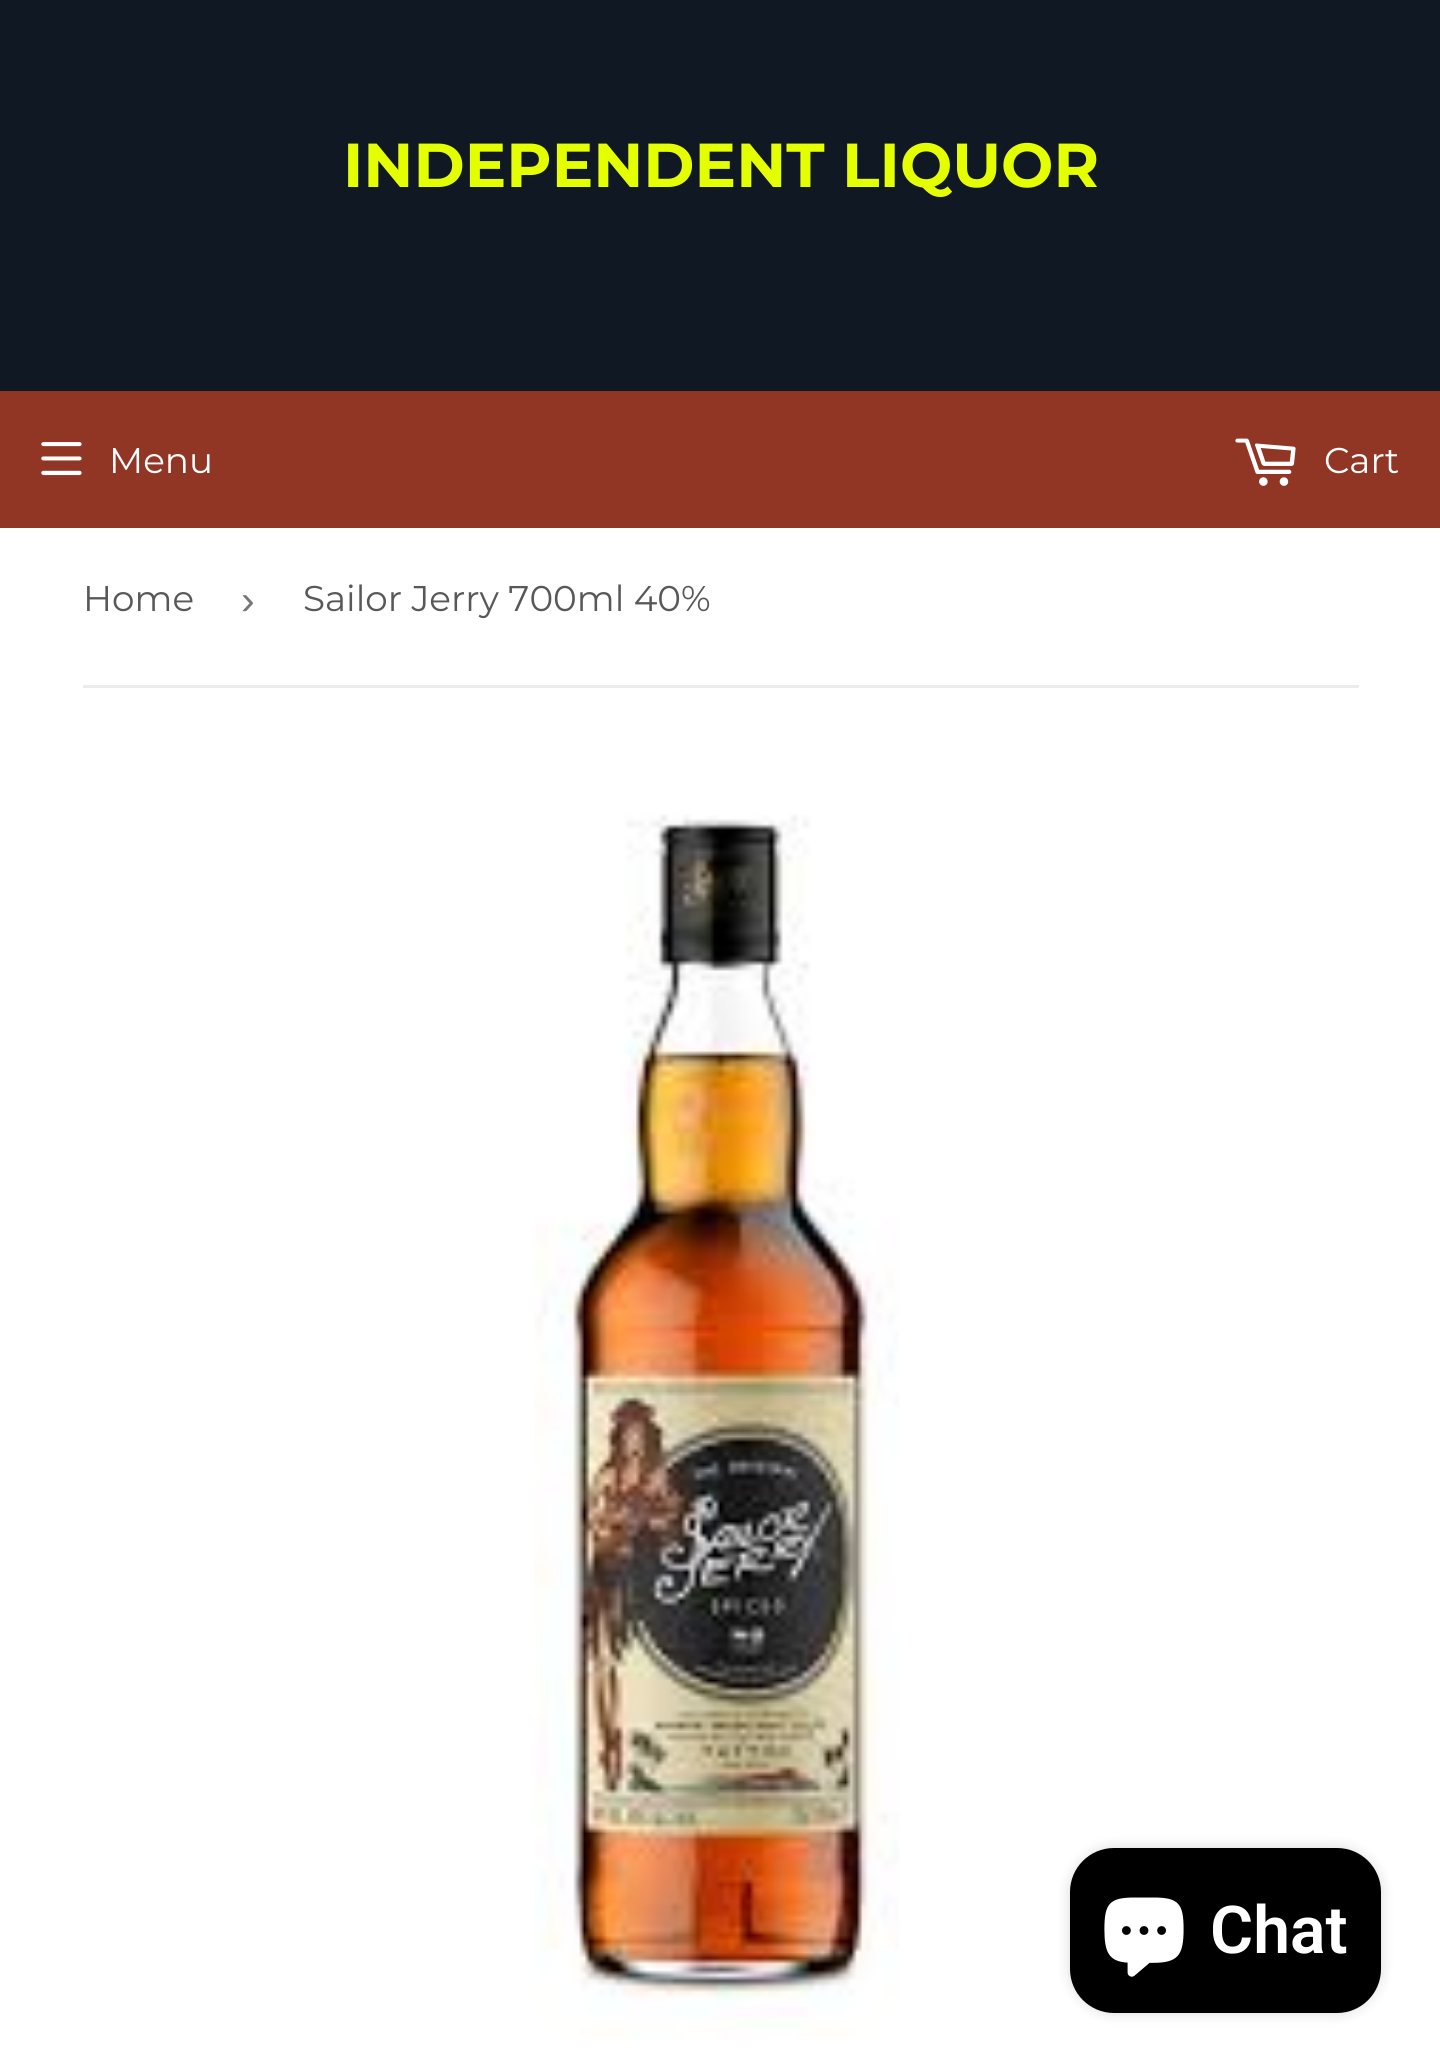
#include <cairo/cairo.h>
#include <math.h>
#include <stddef.h>


static void rounded_rect(cairo_t *cr, double x, double y, double w, double h, double r) {
  cairo_new_sub_path(cr);
  cairo_arc(cr, x + w - r, y + h - r, r, 0, M_PI / 2);
  cairo_arc(cr, x + r, y + h - r, r, M_PI / 2, M_PI);
  cairo_arc(cr, x + r, y + r, r, M_PI, 1.5 * M_PI);
  cairo_arc(cr, x + w - r, y + r, r, 1.5 * M_PI, 2 * M_PI);
  cairo_close_path(cr);
}

static void draw_shadow(cairo_t *cr, double x, double y, double w, double h, double r, double blur, double alpha) {
  cairo_push_group_with_content(cr, CAIRO_CONTENT_ALPHA);
  cairo_set_operator(cr, CAIRO_OPERATOR_SOURCE);
  for (int i = 15; i >= -15 && fmin(w, h) + blur * i / 3 > 0; i -= 2) {
    double e = blur * i / 6;
    cairo_set_source_rgba(cr, 0, 0, 0, alpha * erfc((i - 1) / 8.5) / 2);
    rounded_rect(cr, x - e, y - e, w + 2 * e, h + 2 * e, fmax(0, fmin(r + e + blur * .6, fmin(w, h) / 2 + e)));
    cairo_fill(cr);
  }
  cairo_pattern_t *soft = cairo_pop_group(cr);
  cairo_mask(cr, soft);
  cairo_pattern_destroy(soft);
}

static void draw_image(cairo_t *cr, const char *path, double x, double y, double w, double h) {
  cairo_surface_t *image = cairo_image_surface_create_from_png(path);
  cairo_save(cr);
  cairo_set_source_surface(cr, image, x, y);
  cairo_rectangle(cr, x, y, w, h);
  cairo_fill(cr);
  cairo_restore(cr);
  cairo_surface_destroy(image);
}

static void draw(cairo_t *cr) {
  cairo_set_source_rgb(cr, 1, 1, 1);
  cairo_paint(cr);
  cairo_set_source_rgb(cr, 16 / 255.0, 25 / 255.0, 35 / 255.0);
  cairo_rectangle(cr, 0, 0, 1440, 391);
  cairo_fill(cr);
  cairo_set_source_rgb(cr, 145 / 255.0, 53 / 255.0, 37 / 255.0);
  cairo_rectangle(cr, 0, 391, 1440, 137);
  cairo_fill(cr);
  draw_image(cr, "images/1.png", 41, 442, 41, 34);
  draw_image(cr, "images/2.png", 1235, 438, 61, 48);
  cairo_set_source_rgb(cr, 236 / 255.0, 236 / 255.0, 236 / 255.0);
  cairo_rectangle(cr, 83, 685, 1276, 3);
  cairo_fill(cr);
  draw_image(cr, "images/3.png", 534, 814, 366, 1226);
  cairo_set_source_rgb(cr, 0, 0, 0);
  draw_shadow(cr, 1070, 1848, 311, 165, 44, 7, 0.15);
  cairo_set_source_rgb(cr, 0, 0, 0);
  rounded_rect(cr, 1070, 1848, 311, 165, 44);
  cairo_fill(cr);
  draw_image(cr, "images/4.png", 1104, 1897, 80, 80);
  cairo_select_font_face(cr, "Montserrat", CAIRO_FONT_SLANT_NORMAL, CAIRO_FONT_WEIGHT_BOLD);
  cairo_set_font_size(cr, 62);
  cairo_set_source_rgb(cr, 228 / 255.0, 1, 0);
  cairo_move_to(cr, 343, 187);
  cairo_show_text(cr, "INDEPENDENT LIQUOR");
  cairo_select_font_face(cr, "Montserrat", CAIRO_FONT_SLANT_NORMAL, CAIRO_FONT_WEIGHT_NORMAL);
  cairo_set_font_size(cr, 35.75);
  cairo_set_source_rgb(cr, 1, 1, 1);
  cairo_move_to(cr, 109, 473);
  cairo_show_text(cr, "Menu");
  cairo_move_to(cr, 1324, 473);
  cairo_show_text(cr, "Cart");
  cairo_set_source_rgb(cr, 88 / 255.0, 88 / 255.0, 88 / 255.0);
  cairo_move_to(cr, 83, 611);
  cairo_show_text(cr, "Home");
  cairo_select_font_face(cr, "Liberation Sans", CAIRO_FONT_SLANT_NORMAL, CAIRO_FONT_WEIGHT_NORMAL);
  cairo_set_font_size(cr, 41);
  cairo_set_source_rgb(cr, 118 / 255.0, 118 / 255.0, 118 / 255.0);
  cairo_move_to(cr, 241, 614);
  cairo_show_text(cr, "›");
  cairo_select_font_face(cr, "Montserrat", CAIRO_FONT_SLANT_NORMAL, CAIRO_FONT_WEIGHT_NORMAL);
  cairo_set_font_size(cr, 35.75);
  cairo_set_source_rgb(cr, 88 / 255.0, 88 / 255.0, 88 / 255.0);
  cairo_move_to(cr, 303, 611);
  cairo_show_text(cr, "Sailor Jerry 700ml 40%");
  cairo_select_font_face(cr, "Roboto SemiBold", CAIRO_FONT_SLANT_NORMAL, CAIRO_FONT_WEIGHT_NORMAL);
  cairo_set_font_size(cr, 66);
  cairo_set_source_rgb(cr, 1, 1, 1);
  cairo_move_to(cr, 1210, 1953);
  cairo_show_text(cr, "Chat");
}

int main(void) {
  cairo_surface_t *surface = cairo_image_surface_create(CAIRO_FORMAT_RGB24, 1440, 2070);
  cairo_t *cr = cairo_create(surface);
  cairo_font_options_t *options = cairo_font_options_create();
  cairo_font_options_set_hint_metrics(options, CAIRO_HINT_METRICS_OFF);
  cairo_font_options_set_hint_style(options, CAIRO_HINT_STYLE_NONE);
  cairo_set_font_options(cr, options);
  cairo_set_miter_limit(cr, 4);
  draw(cr);
  cairo_surface_write_to_png(surface, "out.png");
  cairo_font_options_destroy(options);
  cairo_destroy(cr);
  cairo_surface_destroy(surface);
  return 0;
}
